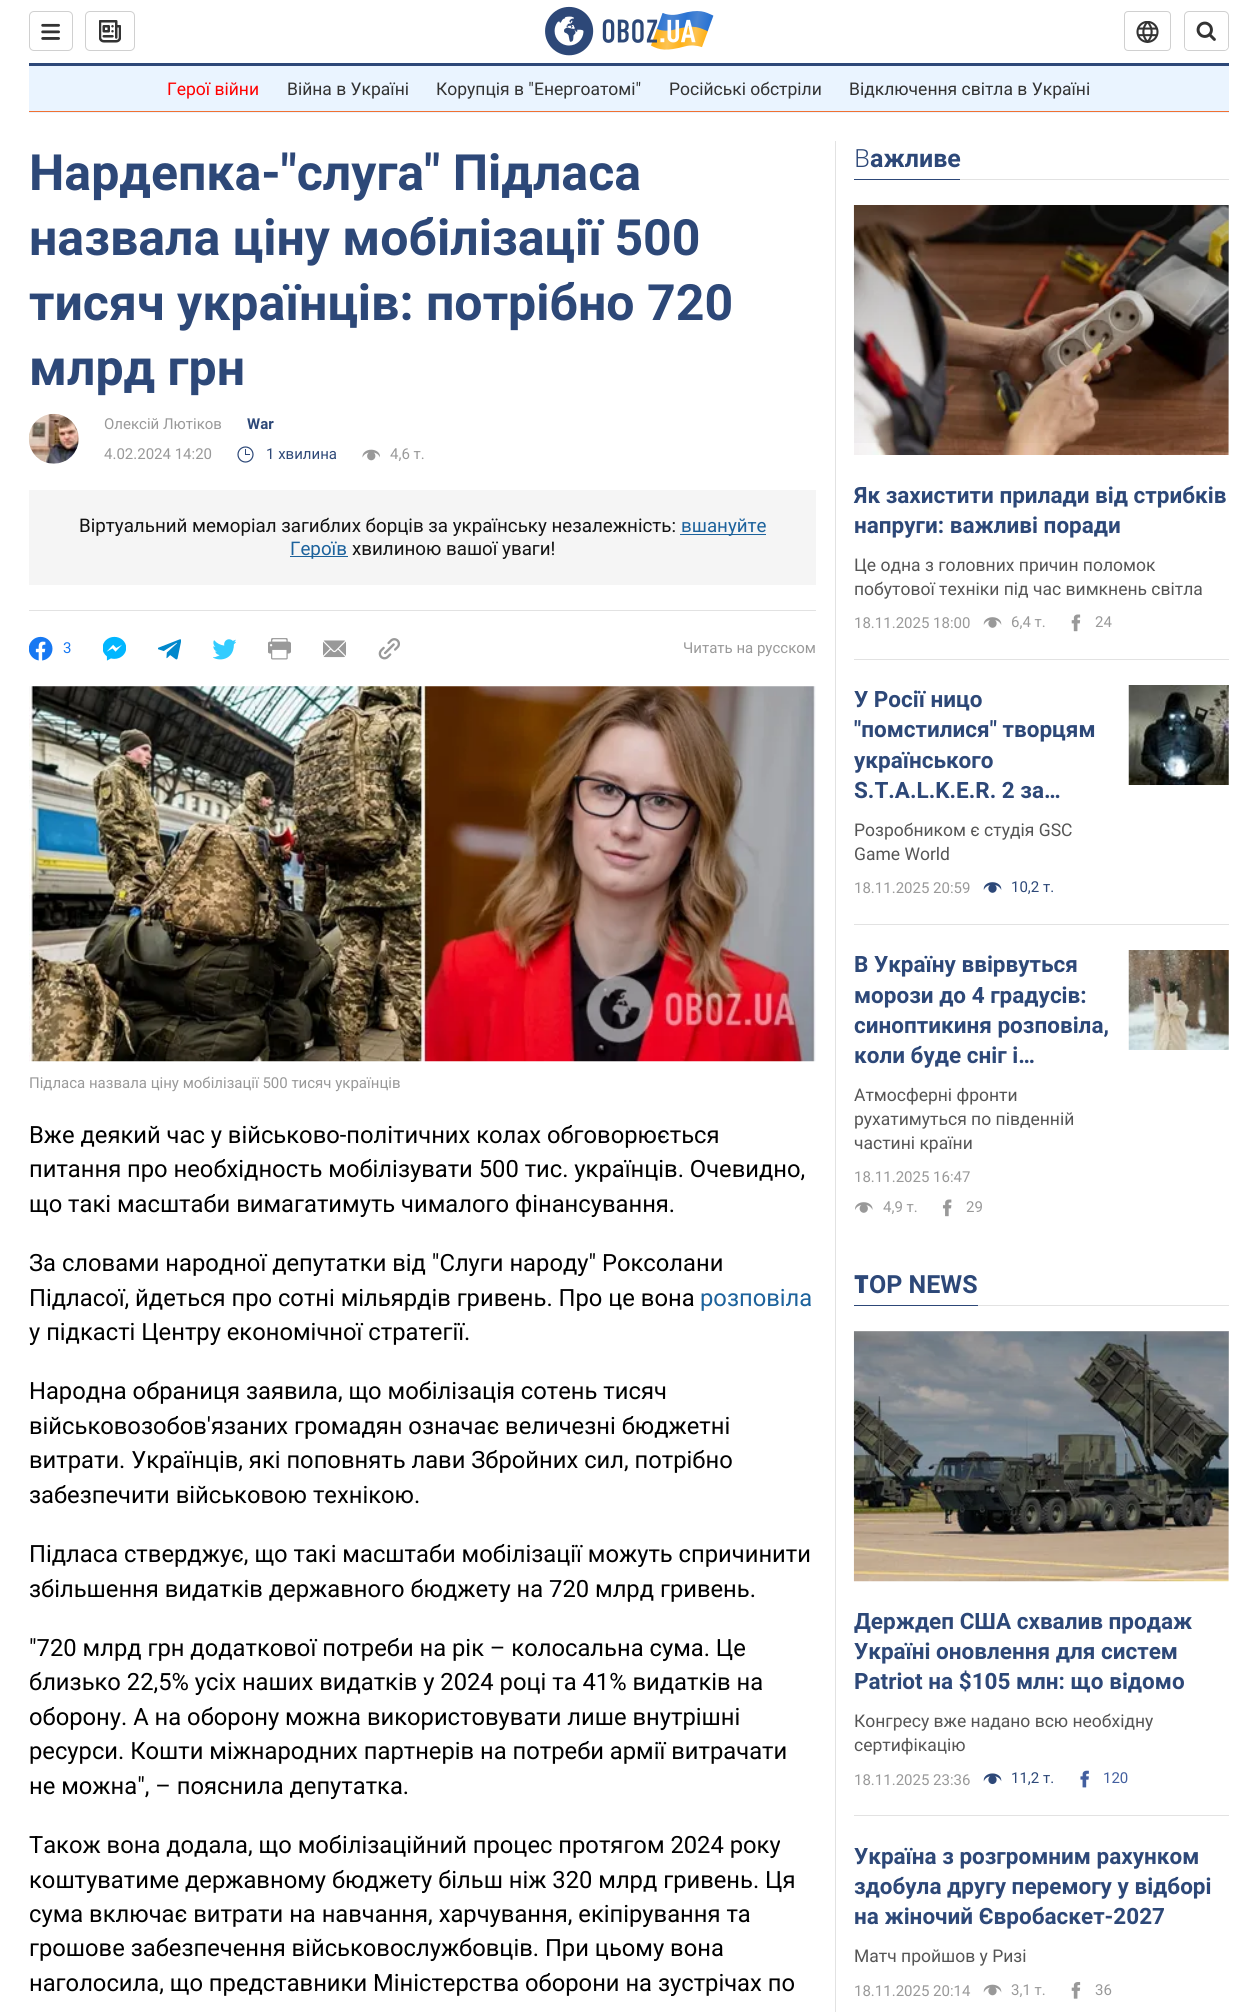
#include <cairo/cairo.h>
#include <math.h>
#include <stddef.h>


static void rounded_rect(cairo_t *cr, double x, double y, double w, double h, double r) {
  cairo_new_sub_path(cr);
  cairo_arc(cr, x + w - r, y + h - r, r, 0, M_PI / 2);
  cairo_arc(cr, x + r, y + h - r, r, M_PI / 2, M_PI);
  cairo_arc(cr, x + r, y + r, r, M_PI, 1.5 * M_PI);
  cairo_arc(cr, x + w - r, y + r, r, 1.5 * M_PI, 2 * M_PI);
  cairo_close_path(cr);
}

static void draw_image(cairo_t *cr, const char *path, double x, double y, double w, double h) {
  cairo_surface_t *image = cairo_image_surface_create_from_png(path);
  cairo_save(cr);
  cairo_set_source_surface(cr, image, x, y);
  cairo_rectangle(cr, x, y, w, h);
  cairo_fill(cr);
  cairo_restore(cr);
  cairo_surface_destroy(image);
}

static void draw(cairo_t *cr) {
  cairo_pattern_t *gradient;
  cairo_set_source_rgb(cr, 1, 1, 1);
  cairo_paint(cr);
  cairo_set_source_rgb(cr, 45 / 255.0, 72 / 255.0, 120 / 255.0);
  cairo_rectangle(cr, 29, 63, 1200, 3);
  cairo_fill(cr);
  rounded_rect(cr, 29.5, 11.5, 43, 39, 4.5);
  cairo_set_source_rgb(cr, 208 / 255.0, 208 / 255.0, 208 / 255.0);
  cairo_set_line_width(cr, 1);
  cairo_stroke(cr);
  draw_image(cr, "images/1.png", 41, 23, 19, 17);
  rounded_rect(cr, 85.5, 11.5, 49, 39, 4.5);
  cairo_stroke(cr);
  draw_image(cr, "images/2.png", 99, 20, 22, 23);
  draw_image(cr, "images/3.png", 545, 6, 169, 50);
  rounded_rect(cr, 1124.5, 11.5, 46, 39, 3.5);
  cairo_stroke(cr);
  draw_image(cr, "images/4.png", 1136, 21, 23, 22);
  rounded_rect(cr, 1184.5, 11.5, 44, 39, 4.5);
  cairo_stroke(cr);
  cairo_set_source_rgb(cr, 1, 1, 1);
  rounded_rect(cr, 1185, 13, 43, 37, 4);
  cairo_fill(cr);
  draw_image(cr, "images/5.png", 1196, 21, 20, 20);
  cairo_set_source_rgb(cr, 234 / 255.0, 244 / 255.0, 1);
  cairo_rectangle(cr, 29, 66, 1200, 47);
  cairo_fill(cr);
  cairo_set_source_rgb(cr, 241 / 255.0, 113 / 255.0, 50 / 255.0);
  cairo_rectangle(cr, 29, 111, 1200, 1);
  cairo_fill(cr);
  cairo_set_source_rgb(cr, 226 / 255.0, 226 / 255.0, 226 / 255.0);
  cairo_rectangle(cr, 29, 610, 787, 1);
  cairo_fill(cr);
  draw_image(cr, "images/6.png", 28, 413, 51, 51);
  cairo_arc(cr, 245.5, 454.5, 7.5, 0, 2 * M_PI);
  cairo_set_source_rgb(cr, 45 / 255.0, 72 / 255.0, 120 / 255.0);
  cairo_set_line_width(cr, 1.2);
  cairo_stroke(cr);
  cairo_rectangle(cr, 245, 454, 5, 1);
  cairo_fill(cr);
  cairo_rectangle(cr, 245, 449, 1, 6);
  cairo_fill(cr);
  draw_image(cr, "images/7.png", 362, 449, 18, 12);
  cairo_set_source_rgb(cr, 245 / 255.0, 245 / 255.0, 245 / 255.0);
  cairo_rectangle(cr, 29, 490, 787, 95);
  cairo_fill(cr);
  cairo_set_source_rgb(cr, 28 / 255.0, 98 / 255.0, 156 / 255.0);
  cairo_rectangle(cr, 680, 534, 86, 1);
  cairo_fill(cr);
  cairo_rectangle(cr, 290, 556, 58, 1);
  cairo_fill(cr);
  draw_image(cr, "images/8.png", 29, 636, 24, 25);
  draw_image(cr, "images/9.png", 103, 636, 23, 25);
  draw_image(cr, "images/10.png", 158, 639, 23, 21);
  draw_image(cr, "images/11.png", 213, 639, 23, 21);
  draw_image(cr, "images/12.png", 268, 638, 23, 22);
  draw_image(cr, "images/13.png", 323, 640, 23, 18);
  draw_image(cr, "images/14.png", 378, 638, 22, 22);
  draw_image(cr, "images/15.png", 29, 686, 787, 376);
  cairo_set_source_rgb(cr, 226 / 255.0, 226 / 255.0, 226 / 255.0);
  cairo_rectangle(cr, 835, 141, 1, 1871);
  cairo_fill(cr);
  cairo_rectangle(cr, 960, 179, 269, 1);
  cairo_fill(cr);
  cairo_set_source_rgb(cr, 45 / 255.0, 72 / 255.0, 120 / 255.0);
  cairo_rectangle(cr, 854, 179, 106, 1);
  cairo_fill(cr);
  cairo_set_source_rgb(cr, 226 / 255.0, 226 / 255.0, 226 / 255.0);
  cairo_rectangle(cr, 854, 659, 375, 1);
  cairo_fill(cr);
  draw_image(cr, "images/16.png", 853, 205, 376, 250);
  gradient = cairo_pattern_create_linear(1041, 205, 1041, 461);
  cairo_pattern_add_color_stop_rgba(gradient, 0, 0, 0, 0, 0.3);
  cairo_pattern_add_color_stop_rgba(gradient, 1, 0, 0, 0, 0);
  cairo_set_source(cr, gradient);
  cairo_pattern_destroy(gradient);
  cairo_rectangle(cr, 854, 205, 375, 238);
  cairo_fill(cr);
  draw_image(cr, "images/17.png", 983, 617, 19, 11);
  draw_image(cr, "images/18.png", 1071, 614, 10, 18);
  cairo_set_source_rgb(cr, 226 / 255.0, 226 / 255.0, 226 / 255.0);
  cairo_rectangle(cr, 854, 924, 375, 1);
  cairo_fill(cr);
  draw_image(cr, "images/19.png", 983, 882, 19, 11);
  draw_image(cr, "images/20.png", 1128, 685, 101, 100);
  draw_image(cr, "images/21.png", 855, 1202, 18, 11);
  draw_image(cr, "images/22.png", 942, 1199, 10, 18);
  draw_image(cr, "images/23.png", 1128, 950, 101, 100);
  cairo_rectangle(cr, 978, 1305, 251, 1);
  cairo_fill(cr);
  cairo_set_source_rgb(cr, 45 / 255.0, 72 / 255.0, 120 / 255.0);
  cairo_rectangle(cr, 854, 1305, 124, 1);
  cairo_fill(cr);
  cairo_set_source_rgb(cr, 226 / 255.0, 226 / 255.0, 226 / 255.0);
  cairo_rectangle(cr, 854, 1815, 375, 1);
  cairo_fill(cr);
  draw_image(cr, "images/24.png", 853, 1331, 376, 251);
  gradient = cairo_pattern_create_linear(1041, 1331, 1041, 1588);
  cairo_pattern_add_color_stop_rgba(gradient, 0, 0, 0, 0, 0.3);
  cairo_pattern_add_color_stop_rgba(gradient, 1, 0, 0, 0, 0);
  cairo_set_source(cr, gradient);
  cairo_pattern_destroy(gradient);
  cairo_rectangle(cr, 854, 1331, 375, 239);
  cairo_fill(cr);
  draw_image(cr, "images/25.png", 983, 1773, 19, 12);
  draw_image(cr, "images/26.png", 1080, 1770, 9, 18);
  draw_image(cr, "images/27.png", 983, 1984, 19, 12);
  draw_image(cr, "images/28.png", 1071, 1982, 10, 17);
  cairo_select_font_face(cr, "Roboto", CAIRO_FONT_SLANT_NORMAL, CAIRO_FONT_WEIGHT_NORMAL);
  cairo_set_font_size(cr, 17.5);
  cairo_set_source_rgb(cr, 1, 0, 0);
  cairo_move_to(cr, 167, 95);
  cairo_show_text(cr, "Герої війни");
  cairo_set_source_rgb(cr, 51 / 255.0, 51 / 255.0, 51 / 255.0);
  cairo_move_to(cr, 287, 95);
  cairo_show_text(cr, "Війна в Україні");
  cairo_move_to(cr, 436, 95);
  cairo_show_text(cr, "Корупція в \"Енергоатомі\"");
  cairo_move_to(cr, 669, 95);
  cairo_show_text(cr, "Російські обстріли");
  cairo_move_to(cr, 849, 95);
  cairo_show_text(cr, "Відключення світла в Україні");
  cairo_select_font_face(cr, "Roboto", CAIRO_FONT_SLANT_NORMAL, CAIRO_FONT_WEIGHT_BOLD);
  cairo_set_font_size(cr, 50);
  cairo_set_source_rgb(cr, 45 / 255.0, 72 / 255.0, 120 / 255.0);
  cairo_move_to(cr, 29, 190);
  cairo_show_text(cr, "Нардепка-\"слуга\" Підласа");
  cairo_move_to(cr, 29, 255);
  cairo_show_text(cr, "назвала ціну мобілізації 500");
  cairo_move_to(cr, 29, 320);
  cairo_show_text(cr, "тисяч українців: потрібно 720");
  cairo_move_to(cr, 29, 385);
  cairo_show_text(cr, "млрд грн");
  cairo_select_font_face(cr, "Roboto", CAIRO_FONT_SLANT_NORMAL, CAIRO_FONT_WEIGHT_NORMAL);
  cairo_set_font_size(cr, 15);
  cairo_set_source_rgb(cr, 153 / 255.0, 153 / 255.0, 153 / 255.0);
  cairo_move_to(cr, 104, 429);
  cairo_show_text(cr, "Олексій Лютіков");
  cairo_select_font_face(cr, "Roboto", CAIRO_FONT_SLANT_NORMAL, CAIRO_FONT_WEIGHT_BOLD);
  cairo_set_source_rgb(cr, 45 / 255.0, 72 / 255.0, 120 / 255.0);
  cairo_move_to(cr, 247, 429);
  cairo_show_text(cr, "War");
  cairo_select_font_face(cr, "Roboto", CAIRO_FONT_SLANT_NORMAL, CAIRO_FONT_WEIGHT_NORMAL);
  cairo_set_source_rgb(cr, 153 / 255.0, 153 / 255.0, 153 / 255.0);
  cairo_move_to(cr, 104, 459);
  cairo_show_text(cr, "4.02.2024 14:20");
  cairo_set_source_rgb(cr, 45 / 255.0, 72 / 255.0, 120 / 255.0);
  cairo_move_to(cr, 266, 459);
  cairo_show_text(cr, "1 хвилина");
  cairo_set_source_rgb(cr, 153 / 255.0, 153 / 255.0, 153 / 255.0);
  cairo_move_to(cr, 390, 459);
  cairo_show_text(cr, "4,6 т.");
  cairo_set_font_size(cr, 18.75);
  cairo_set_source_rgb(cr, 18 / 255.0, 18 / 255.0, 18 / 255.0);
  cairo_move_to(cr, 79, 532);
  cairo_show_text(cr, "Віртуальний меморіал загиблих борців за українську незалежність:");
  cairo_set_source_rgb(cr, 28 / 255.0, 98 / 255.0, 156 / 255.0);
  cairo_move_to(cr, 681, 532);
  cairo_show_text(cr, "вшануйте");
  cairo_move_to(cr, 290, 555);
  cairo_show_text(cr, "Героїв");
  cairo_set_source_rgb(cr, 18 / 255.0, 18 / 255.0, 18 / 255.0);
  cairo_move_to(cr, 352, 555);
  cairo_show_text(cr, "хвилиною вашої уваги!");
  cairo_set_font_size(cr, 15);
  cairo_set_source_rgb(cr, 23 / 255.0, 120 / 255.0, 242 / 255.0);
  cairo_move_to(cr, 63, 653);
  cairo_show_text(cr, "3");
  cairo_set_source_rgb(cr, 153 / 255.0, 153 / 255.0, 153 / 255.0);
  cairo_move_to(cr, 683, 653);
  cairo_show_text(cr, "Читать на русском");
  cairo_move_to(cr, 29, 1088);
  cairo_show_text(cr, "Підласа назвала ціну мобілізації 500 тисяч українців");
  cairo_set_font_size(cr, 23.75);
  cairo_set_source_rgb(cr, 0, 0, 0);
  cairo_move_to(cr, 29, 1143);
  cairo_show_text(cr, "Вже деякий час у військово-політичних колах обговорюється");
  cairo_move_to(cr, 29, 1177);
  cairo_show_text(cr, "питання про необхідность мобілізувати 500 тис. українців. Очевидно,");
  cairo_move_to(cr, 29, 1212);
  cairo_show_text(cr, "що такі масштаби вимагатимуть чималого фінансування.");
  cairo_move_to(cr, 29, 1271);
  cairo_show_text(cr, "За словами народної депутатки від \"Слуги народу\" Роксолани");
  cairo_move_to(cr, 29, 1306);
  cairo_show_text(cr, "Підласої, йдеться про сотні мільярдів гривень. Про це вона");
  cairo_set_source_rgb(cr, 28 / 255.0, 98 / 255.0, 156 / 255.0);
  cairo_move_to(cr, 700, 1306);
  cairo_show_text(cr, "розповіла");
  cairo_set_source_rgb(cr, 0, 0, 0);
  cairo_move_to(cr, 29, 1340);
  cairo_show_text(cr, "у підкасті Центру економічної стратегії.");
  cairo_move_to(cr, 29, 1399);
  cairo_show_text(cr, "Народна обраниця заявила, що мобілізація сотень тисяч");
  cairo_move_to(cr, 29, 1434);
  cairo_show_text(cr, "військовозобов'язаних громадян означає величезні бюджетні");
  cairo_move_to(cr, 29, 1468);
  cairo_show_text(cr, "витрати. Українців, які поповнять лави Збройних сил, потрібно");
  cairo_move_to(cr, 29, 1503);
  cairo_show_text(cr, "забезпечити військовою технікою.");
  cairo_move_to(cr, 29, 1562);
  cairo_show_text(cr, "Підласа стверджує, що такі масштаби мобілізації можуть спричинити");
  cairo_move_to(cr, 29, 1597);
  cairo_show_text(cr, "збільшення видатків державного бюджету на 720 млрд гривень.");
  cairo_move_to(cr, 29, 1656);
  cairo_show_text(cr, "\"720 млрд грн додаткової потреби на рік – колосальна сума. Це");
  cairo_move_to(cr, 29, 1690);
  cairo_show_text(cr, "близько 22,5% усіх наших видатків у 2024 році та 41% видатків на");
  cairo_move_to(cr, 29, 1725);
  cairo_show_text(cr, "оборону. А на оборону можна використовувати лише внутрішні");
  cairo_move_to(cr, 29, 1759);
  cairo_show_text(cr, "ресурси. Кошти міжнародних партнерів на потреби армії витрачати");
  cairo_move_to(cr, 29, 1794);
  cairo_show_text(cr, "не можна\", – пояснила депутатка.");
  cairo_move_to(cr, 29, 1853);
  cairo_show_text(cr, "Також вона додала, що мобілізаційний процес протягом 2024 року");
  cairo_move_to(cr, 29, 1888);
  cairo_show_text(cr, "коштуватиме державному бюджету більш ніж 320 млрд гривень. Ця");
  cairo_move_to(cr, 29, 1922);
  cairo_show_text(cr, "сума включає витрати на навчання, харчування, екіпірування та");
  cairo_move_to(cr, 29, 1956);
  cairo_show_text(cr, "грошове забезпечення військовослужбовців. При цьому вона");
  cairo_move_to(cr, 29, 1991);
  cairo_show_text(cr, "наголосила, що представники Міністерства оборони на зустрічах по");
  cairo_select_font_face(cr, "Noto Sans Light", CAIRO_FONT_SLANT_NORMAL, CAIRO_FONT_WEIGHT_NORMAL);
  cairo_set_font_size(cr, 25);
  cairo_set_source_rgb(cr, 45 / 255.0, 72 / 255.0, 120 / 255.0);
  cairo_move_to(cr, 854, 167);
  cairo_show_text(cr, "В");
  cairo_select_font_face(cr, "Roboto", CAIRO_FONT_SLANT_NORMAL, CAIRO_FONT_WEIGHT_BOLD);
  cairo_move_to(cr, 870, 167);
  cairo_show_text(cr, "ажливе");
  cairo_set_font_size(cr, 22.5);
  cairo_move_to(cr, 854, 503);
  cairo_show_text(cr, "Як захистити прилади від стрибків");
  cairo_move_to(cr, 854, 533);
  cairo_show_text(cr, "напруги: важливі поради");
  cairo_select_font_face(cr, "Roboto", CAIRO_FONT_SLANT_NORMAL, CAIRO_FONT_WEIGHT_NORMAL);
  cairo_set_font_size(cr, 17.5);
  cairo_set_source_rgb(cr, 85 / 255.0, 85 / 255.0, 85 / 255.0);
  cairo_move_to(cr, 854, 571);
  cairo_show_text(cr, "Це одна з головних причин поломок");
  cairo_move_to(cr, 854, 595);
  cairo_show_text(cr, "побутової техніки під час вимкнень світла");
  cairo_set_font_size(cr, 15);
  cairo_set_source_rgb(cr, 153 / 255.0, 153 / 255.0, 153 / 255.0);
  cairo_move_to(cr, 854, 628);
  cairo_show_text(cr, "18.11.2025 18:00");
  cairo_move_to(cr, 1011, 627);
  cairo_show_text(cr, "6,4 т.");
  cairo_move_to(cr, 1095, 627);
  cairo_show_text(cr, "24");
  cairo_select_font_face(cr, "Roboto", CAIRO_FONT_SLANT_NORMAL, CAIRO_FONT_WEIGHT_BOLD);
  cairo_set_font_size(cr, 22.5);
  cairo_set_source_rgb(cr, 45 / 255.0, 72 / 255.0, 120 / 255.0);
  cairo_move_to(cr, 854, 707);
  cairo_show_text(cr, "У Росії ницо");
  cairo_move_to(cr, 854, 737);
  cairo_show_text(cr, "\"помстилися\" творцям");
  cairo_move_to(cr, 854, 768);
  cairo_show_text(cr, "українського");
  cairo_move_to(cr, 854, 798);
  cairo_show_text(cr, "S.T.A.L.K.E.R. 2 за…");
  cairo_select_font_face(cr, "Roboto", CAIRO_FONT_SLANT_NORMAL, CAIRO_FONT_WEIGHT_NORMAL);
  cairo_set_font_size(cr, 17.5);
  cairo_set_source_rgb(cr, 85 / 255.0, 85 / 255.0, 85 / 255.0);
  cairo_move_to(cr, 854, 836);
  cairo_show_text(cr, "Розробником є студія GSC");
  cairo_move_to(cr, 854, 860);
  cairo_show_text(cr, "Game World");
  cairo_set_font_size(cr, 15);
  cairo_set_source_rgb(cr, 153 / 255.0, 153 / 255.0, 153 / 255.0);
  cairo_move_to(cr, 854, 893);
  cairo_show_text(cr, "18.11.2025 20:59");
  cairo_set_source_rgb(cr, 45 / 255.0, 72 / 255.0, 120 / 255.0);
  cairo_move_to(cr, 1011, 892);
  cairo_show_text(cr, "10,2 т.");
  cairo_select_font_face(cr, "Roboto", CAIRO_FONT_SLANT_NORMAL, CAIRO_FONT_WEIGHT_BOLD);
  cairo_set_font_size(cr, 22.5);
  cairo_move_to(cr, 854, 972);
  cairo_show_text(cr, "В Україну ввірвуться");
  cairo_move_to(cr, 854, 1003);
  cairo_show_text(cr, "морози до 4 градусів:");
  cairo_move_to(cr, 854, 1033);
  cairo_show_text(cr, "синоптикиня розповіла,");
  cairo_move_to(cr, 854, 1063);
  cairo_show_text(cr, "коли буде сніг і…");
  cairo_select_font_face(cr, "Roboto", CAIRO_FONT_SLANT_NORMAL, CAIRO_FONT_WEIGHT_NORMAL);
  cairo_set_font_size(cr, 17.5);
  cairo_set_source_rgb(cr, 85 / 255.0, 85 / 255.0, 85 / 255.0);
  cairo_move_to(cr, 854, 1101);
  cairo_show_text(cr, "Атмосферні фронти");
  cairo_move_to(cr, 854, 1125);
  cairo_show_text(cr, "рухатимуться по південній");
  cairo_move_to(cr, 854, 1149);
  cairo_show_text(cr, "частині країни");
  cairo_set_font_size(cr, 15);
  cairo_set_source_rgb(cr, 153 / 255.0, 153 / 255.0, 153 / 255.0);
  cairo_move_to(cr, 854, 1182);
  cairo_show_text(cr, "18.11.2025 16:47");
  cairo_move_to(cr, 883, 1212);
  cairo_show_text(cr, "4,9 т.");
  cairo_move_to(cr, 966, 1212);
  cairo_show_text(cr, "29");
  cairo_select_font_face(cr, "Noto Sans Black", CAIRO_FONT_SLANT_NORMAL, CAIRO_FONT_WEIGHT_NORMAL);
  cairo_set_font_size(cr, 25);
  cairo_set_source_rgb(cr, 45 / 255.0, 72 / 255.0, 120 / 255.0);
  cairo_move_to(cr, 854, 1293);
  cairo_show_text(cr, "T");
  cairo_select_font_face(cr, "Roboto", CAIRO_FONT_SLANT_NORMAL, CAIRO_FONT_WEIGHT_BOLD);
  cairo_move_to(cr, 869, 1293);
  cairo_show_text(cr, "OP NEWS");
  cairo_set_font_size(cr, 22.5);
  cairo_move_to(cr, 854, 1629);
  cairo_show_text(cr, "Держдеп США схвалив продаж");
  cairo_move_to(cr, 854, 1659);
  cairo_show_text(cr, "Україні оновлення для систем");
  cairo_move_to(cr, 854, 1689);
  cairo_show_text(cr, "Patriot на $105 млн: що відомо");
  cairo_select_font_face(cr, "Roboto", CAIRO_FONT_SLANT_NORMAL, CAIRO_FONT_WEIGHT_NORMAL);
  cairo_set_font_size(cr, 17.5);
  cairo_set_source_rgb(cr, 85 / 255.0, 85 / 255.0, 85 / 255.0);
  cairo_move_to(cr, 854, 1727);
  cairo_show_text(cr, "Конгресу вже надано всю необхідну");
  cairo_move_to(cr, 854, 1751);
  cairo_show_text(cr, "сертифікацію");
  cairo_set_font_size(cr, 15);
  cairo_set_source_rgb(cr, 153 / 255.0, 153 / 255.0, 153 / 255.0);
  cairo_move_to(cr, 854, 1785);
  cairo_show_text(cr, "18.11.2025 23:36");
  cairo_set_source_rgb(cr, 45 / 255.0, 72 / 255.0, 120 / 255.0);
  cairo_move_to(cr, 1011, 1783);
  cairo_show_text(cr, "11,2 т.");
  cairo_set_source_rgb(cr, 67 / 255.0, 95 / 255.0, 159 / 255.0);
  cairo_move_to(cr, 1103, 1783);
  cairo_show_text(cr, "120");
  cairo_select_font_face(cr, "Roboto", CAIRO_FONT_SLANT_NORMAL, CAIRO_FONT_WEIGHT_BOLD);
  cairo_set_font_size(cr, 22.5);
  cairo_set_source_rgb(cr, 45 / 255.0, 72 / 255.0, 120 / 255.0);
  cairo_move_to(cr, 854, 1864);
  cairo_show_text(cr, "Україна з розгромним рахунком");
  cairo_move_to(cr, 854, 1894);
  cairo_show_text(cr, "здобула другу перемогу у відборі");
  cairo_move_to(cr, 854, 1924);
  cairo_show_text(cr, "на жіночий Євробаскет-2027");
  cairo_select_font_face(cr, "Roboto", CAIRO_FONT_SLANT_NORMAL, CAIRO_FONT_WEIGHT_NORMAL);
  cairo_set_font_size(cr, 17.5);
  cairo_set_source_rgb(cr, 85 / 255.0, 85 / 255.0, 85 / 255.0);
  cairo_move_to(cr, 854, 1962);
  cairo_show_text(cr, "Матч пройшов у Ризі");
  cairo_set_font_size(cr, 15);
  cairo_set_source_rgb(cr, 153 / 255.0, 153 / 255.0, 153 / 255.0);
  cairo_move_to(cr, 854, 1996);
  cairo_show_text(cr, "18.11.2025 20:14");
  cairo_move_to(cr, 1011, 1995);
  cairo_show_text(cr, "3,1 т.");
  cairo_move_to(cr, 1095, 1995);
  cairo_show_text(cr, "36");
}

int main(void) {
  cairo_surface_t *surface = cairo_image_surface_create(CAIRO_FORMAT_RGB24, 1257, 2012);
  cairo_t *cr = cairo_create(surface);
  cairo_font_options_t *options = cairo_font_options_create();
  cairo_font_options_set_hint_metrics(options, CAIRO_HINT_METRICS_OFF);
  cairo_font_options_set_hint_style(options, CAIRO_HINT_STYLE_NONE);
  cairo_set_font_options(cr, options);
  cairo_set_miter_limit(cr, 4);
  draw(cr);
  cairo_surface_write_to_png(surface, "out.png");
  cairo_font_options_destroy(options);
  cairo_destroy(cr);
  cairo_surface_destroy(surface);
  return 0;
}
